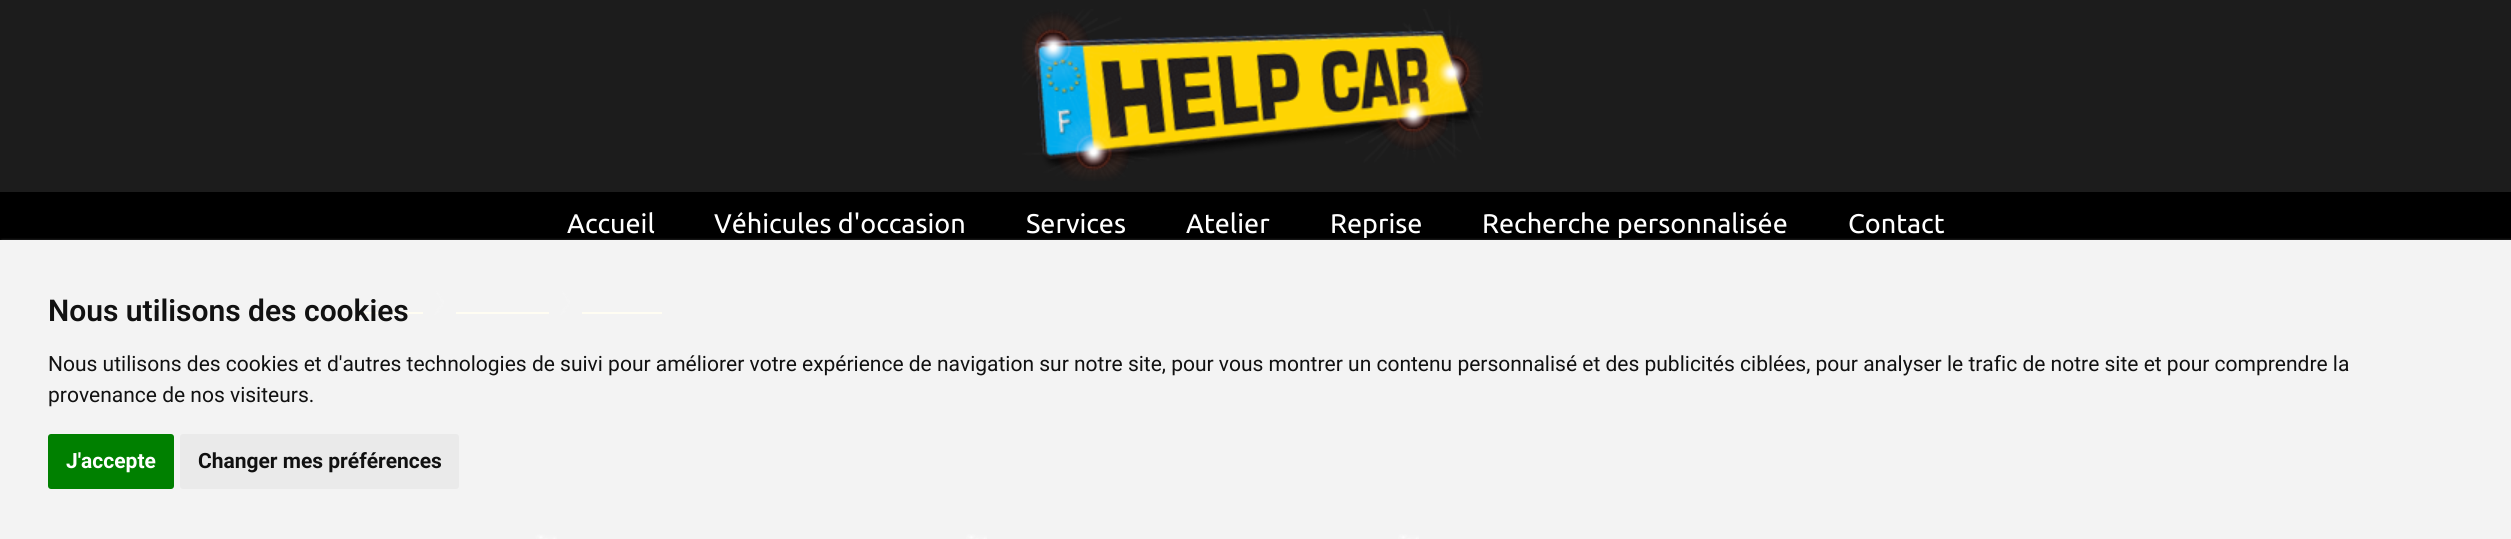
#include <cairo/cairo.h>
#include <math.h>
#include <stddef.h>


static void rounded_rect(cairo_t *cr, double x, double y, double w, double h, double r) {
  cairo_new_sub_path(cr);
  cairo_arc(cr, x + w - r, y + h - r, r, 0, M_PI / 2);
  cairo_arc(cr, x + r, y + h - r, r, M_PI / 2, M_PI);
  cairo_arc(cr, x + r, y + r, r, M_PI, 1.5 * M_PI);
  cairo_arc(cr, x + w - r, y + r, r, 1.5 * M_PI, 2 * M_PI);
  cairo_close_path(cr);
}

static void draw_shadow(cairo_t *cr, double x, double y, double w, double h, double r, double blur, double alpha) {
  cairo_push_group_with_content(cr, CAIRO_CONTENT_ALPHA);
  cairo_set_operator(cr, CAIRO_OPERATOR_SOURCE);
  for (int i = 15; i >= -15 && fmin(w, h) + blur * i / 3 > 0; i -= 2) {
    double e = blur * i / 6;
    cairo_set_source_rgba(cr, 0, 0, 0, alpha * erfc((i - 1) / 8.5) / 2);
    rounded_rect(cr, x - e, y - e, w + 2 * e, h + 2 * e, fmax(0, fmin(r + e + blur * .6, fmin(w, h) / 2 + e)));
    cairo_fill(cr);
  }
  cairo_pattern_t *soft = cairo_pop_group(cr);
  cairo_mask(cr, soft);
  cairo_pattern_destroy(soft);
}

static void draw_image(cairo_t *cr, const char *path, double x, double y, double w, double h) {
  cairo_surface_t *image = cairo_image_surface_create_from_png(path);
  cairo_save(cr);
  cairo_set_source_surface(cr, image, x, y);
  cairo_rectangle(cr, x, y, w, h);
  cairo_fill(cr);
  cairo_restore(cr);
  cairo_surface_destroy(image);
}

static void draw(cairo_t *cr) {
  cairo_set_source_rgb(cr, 243 / 255.0, 243 / 255.0, 243 / 255.0);
  cairo_paint(cr);
  cairo_set_source_rgb(cr, 28 / 255.0, 28 / 255.0, 28 / 255.0);
  cairo_rectangle(cr, 0, 0, 2511, 192);
  cairo_fill(cr);
  draw_image(cr, "images/1.png", 1022, 9, 461, 172);
  cairo_set_source_rgb(cr, 0, 0, 0);
  cairo_rectangle(cr, 0, 192, 2511, 48);
  cairo_fill(cr);
  cairo_set_source_rgb(cr, 1, 253 / 255.0, 242 / 255.0);
  cairo_rectangle(cr, 356, 312, 67, 2);
  cairo_fill(cr);
  draw_image(cr, "images/2.png", 434, 291, 10, 24);
  cairo_rectangle(cr, 456, 312, 93, 2);
  cairo_fill(cr);
  draw_image(cr, "images/2.png", 560, 291, 10, 24);
  cairo_rectangle(cr, 582, 312, 80, 2);
  cairo_fill(cr);
  draw_image(cr, "images/3.png", 535, 534, 22, 5);
  draw_image(cr, "images/4.png", 966, 534, 21, 5);
  draw_image(cr, "images/4.png", 1398, 534, 21, 5);
  cairo_save(cr);
  cairo_rectangle(cr, 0, 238, 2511, 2);
  cairo_clip(cr);
  cairo_set_source_rgb(cr, 204 / 255.0, 204 / 255.0, 204 / 255.0);
  draw_shadow(cr, 2, 242, 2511, 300, 0, 2, 1);
  cairo_restore(cr);
  cairo_set_source_rgb(cr, 0, 128 / 255.0, 0);
  rounded_rect(cr, 48, 434, 126, 55, 3);
  cairo_fill(cr);
  cairo_set_source_rgb(cr, 234 / 255.0, 234 / 255.0, 234 / 255.0);
  rounded_rect(cr, 180, 434, 279, 55, 3);
  cairo_fill(cr);
  cairo_select_font_face(cr, "Ubuntu", CAIRO_FONT_SLANT_NORMAL, CAIRO_FONT_WEIGHT_NORMAL);
  cairo_set_font_size(cr, 27);
  cairo_set_source_rgb(cr, 1, 1, 1);
  cairo_move_to(cr, 567, 233);
  cairo_show_text(cr, "Accueil");
  cairo_move_to(cr, 714, 233);
  cairo_show_text(cr, "Véhicules d'occasion");
  cairo_move_to(cr, 1026, 233);
  cairo_show_text(cr, "Services");
  cairo_move_to(cr, 1186, 233);
  cairo_show_text(cr, "Atelier");
  cairo_move_to(cr, 1330, 233);
  cairo_show_text(cr, "Reprise");
  cairo_move_to(cr, 1482, 233);
  cairo_show_text(cr, "Recherche personnalisée");
  cairo_move_to(cr, 1848, 233);
  cairo_show_text(cr, "Contact");
  cairo_select_font_face(cr, "Roboto SemiBold", CAIRO_FONT_SLANT_NORMAL, CAIRO_FONT_WEIGHT_NORMAL);
  cairo_set_font_size(cr, 30);
  cairo_set_source_rgb(cr, 17 / 255.0, 17 / 255.0, 17 / 255.0);
  cairo_move_to(cr, 48, 321);
  cairo_show_text(cr, "Nous utilisons des cookies");
  cairo_select_font_face(cr, "Roboto", CAIRO_FONT_SLANT_NORMAL, CAIRO_FONT_WEIGHT_NORMAL);
  cairo_set_font_size(cr, 21);
  cairo_move_to(cr, 48, 371);
  cairo_show_text(cr, "Nous utilisons des cookies et d'autres technologies de suivi pour améliorer votre expérience de navigation sur notre site, pour vous montrer un contenu personnalisé et des publicités ciblées, pour analyser le trafic de notre site et pour comprendre la");
  cairo_move_to(cr, 48, 402);
  cairo_show_text(cr, "provenance de nos visiteurs.");
  cairo_select_font_face(cr, "Roboto", CAIRO_FONT_SLANT_NORMAL, CAIRO_FONT_WEIGHT_BOLD);
  cairo_set_source_rgb(cr, 1, 1, 1);
  cairo_move_to(cr, 66, 468);
  cairo_show_text(cr, "J'accepte");
  cairo_set_source_rgb(cr, 17 / 255.0, 17 / 255.0, 17 / 255.0);
  cairo_move_to(cr, 198, 468);
  cairo_show_text(cr, "Changer mes préférences");
}

int main(void) {
  cairo_surface_t *surface = cairo_image_surface_create(CAIRO_FORMAT_RGB24, 2511, 539);
  cairo_t *cr = cairo_create(surface);
  cairo_font_options_t *options = cairo_font_options_create();
  cairo_font_options_set_hint_metrics(options, CAIRO_HINT_METRICS_OFF);
  cairo_font_options_set_hint_style(options, CAIRO_HINT_STYLE_NONE);
  cairo_set_font_options(cr, options);
  cairo_set_miter_limit(cr, 4);
  draw(cr);
  cairo_surface_write_to_png(surface, "out.png");
  cairo_font_options_destroy(options);
  cairo_destroy(cr);
  cairo_surface_destroy(surface);
  return 0;
}
